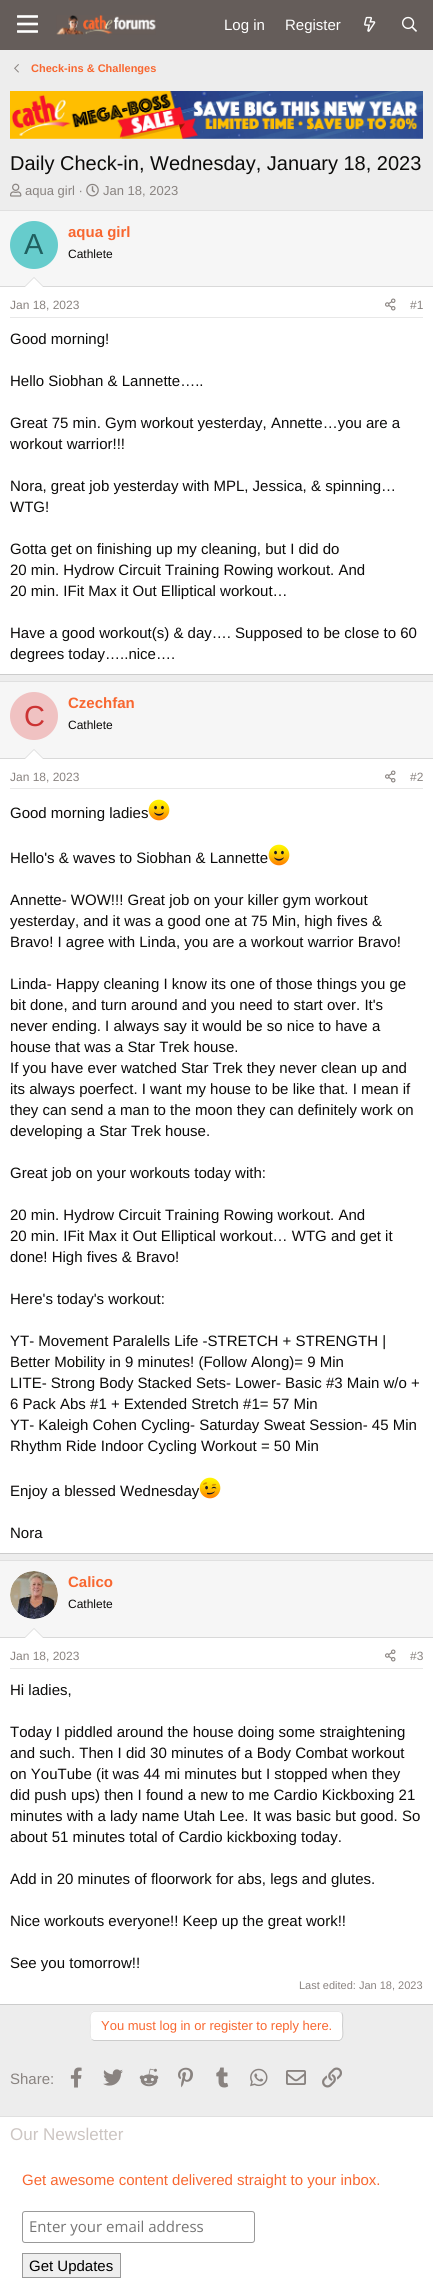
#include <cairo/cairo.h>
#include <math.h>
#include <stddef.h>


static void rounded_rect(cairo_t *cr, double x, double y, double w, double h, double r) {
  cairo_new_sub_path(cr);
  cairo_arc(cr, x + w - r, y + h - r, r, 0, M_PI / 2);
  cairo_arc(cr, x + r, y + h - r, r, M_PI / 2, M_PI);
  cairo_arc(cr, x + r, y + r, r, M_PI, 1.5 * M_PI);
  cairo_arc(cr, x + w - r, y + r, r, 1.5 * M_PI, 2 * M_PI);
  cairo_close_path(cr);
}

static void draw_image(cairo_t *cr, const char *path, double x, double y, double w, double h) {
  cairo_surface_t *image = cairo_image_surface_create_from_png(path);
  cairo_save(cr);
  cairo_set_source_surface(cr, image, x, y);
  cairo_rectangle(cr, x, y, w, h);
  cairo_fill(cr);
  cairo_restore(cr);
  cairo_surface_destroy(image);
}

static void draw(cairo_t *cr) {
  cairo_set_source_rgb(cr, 237 / 255.0, 237 / 255.0, 237 / 255.0);
  cairo_paint(cr);
  cairo_set_source_rgb(cr, 101 / 255.0, 93 / 255.0, 90 / 255.0);
  cairo_rectangle(cr, 0, 0, 433, 50);
  cairo_fill(cr);
  draw_image(cr, "images/1.png", 17, 15, 21, 18);
  draw_image(cr, "images/2.png", 56, 15, 100, 20);
  draw_image(cr, "images/3.png", 364, 16, 12, 16);
  draw_image(cr, "images/4.png", 402, 16, 15, 16);
  draw_image(cr, "images/5.png", 14, 64, 5, 9);
  draw_image(cr, "images/6.png", 10, 91, 413, 48);
  draw_image(cr, "images/7.png", 10, 183, 12, 14);
  draw_image(cr, "images/8.png", 86, 183, 13, 14);
  cairo_set_source_rgb(cr, 1, 1, 1);
  cairo_rectangle(cr, 0, 287, 433, 387);
  cairo_fill(cr);
  cairo_set_source_rgb(cr, 224 / 255.0, 224 / 255.0, 224 / 255.0);
  cairo_rectangle(cr, 0, 210, 433, 1);
  cairo_fill(cr);
  cairo_set_source_rgb(cr, 204 / 255.0, 204 / 255.0, 204 / 255.0);
  cairo_rectangle(cr, 0, 674, 433, 1);
  cairo_fill(cr);
  cairo_set_source_rgb(cr, 246 / 255.0, 246 / 255.0, 246 / 255.0);
  cairo_rectangle(cr, 0, 211, 433, 75);
  cairo_fill(cr);
  cairo_set_source_rgb(cr, 217 / 255.0, 217 / 255.0, 217 / 255.0);
  cairo_rectangle(cr, 0, 286, 433, 1);
  cairo_fill(cr);
  cairo_set_source_rgb(cr, 102 / 255.0, 204 / 255.0, 204 / 255.0);
  cairo_arc(cr, 34, 245, 24, 0, 2 * M_PI);
  cairo_fill(cr);
  cairo_set_source_rgb(cr, 217 / 255.0, 217 / 255.0, 217 / 255.0);
  cairo_new_path(cr);
  cairo_move_to(cr, 44, 287);
  cairo_line_to(cr, 24, 287);
  cairo_line_to(cr, 34, 277);
  cairo_close_path(cr);
  cairo_fill(cr);
  cairo_set_source_rgb(cr, 1, 1, 1);
  cairo_new_path(cr);
  cairo_move_to(cr, 43, 287);
  cairo_line_to(cr, 25, 287);
  cairo_line_to(cr, 34, 278);
  cairo_close_path(cr);
  cairo_fill(cr);
  cairo_set_source_rgb(cr, 232 / 255.0, 232 / 255.0, 232 / 255.0);
  cairo_rectangle(cr, 10, 317, 413, 1);
  cairo_fill(cr);
  draw_image(cr, "images/9.png", 385, 298, 11, 13);
  cairo_set_source_rgb(cr, 1, 1, 1);
  cairo_rectangle(cr, 0, 759, 433, 794);
  cairo_fill(cr);
  cairo_set_source_rgb(cr, 224 / 255.0, 224 / 255.0, 224 / 255.0);
  cairo_rectangle(cr, 0, 681, 433, 1);
  cairo_fill(cr);
  cairo_set_source_rgb(cr, 204 / 255.0, 204 / 255.0, 204 / 255.0);
  cairo_rectangle(cr, 0, 1553, 433, 1);
  cairo_fill(cr);
  cairo_set_source_rgb(cr, 246 / 255.0, 246 / 255.0, 246 / 255.0);
  cairo_rectangle(cr, 0, 682, 433, 76);
  cairo_fill(cr);
  cairo_set_source_rgb(cr, 217 / 255.0, 217 / 255.0, 217 / 255.0);
  cairo_rectangle(cr, 0, 758, 433, 1);
  cairo_fill(cr);
  cairo_set_source_rgb(cr, 240 / 255.0, 194 / 255.0, 194 / 255.0);
  cairo_arc(cr, 34, 716, 24, 0, 2 * M_PI);
  cairo_fill(cr);
  cairo_set_source_rgb(cr, 217 / 255.0, 217 / 255.0, 217 / 255.0);
  cairo_new_path(cr);
  cairo_move_to(cr, 44, 759);
  cairo_line_to(cr, 24, 759);
  cairo_line_to(cr, 34, 749);
  cairo_close_path(cr);
  cairo_fill(cr);
  cairo_set_source_rgb(cr, 1, 1, 1);
  cairo_new_path(cr);
  cairo_move_to(cr, 43, 759);
  cairo_line_to(cr, 25, 759);
  cairo_line_to(cr, 34, 750);
  cairo_close_path(cr);
  cairo_fill(cr);
  cairo_set_source_rgb(cr, 232 / 255.0, 232 / 255.0, 232 / 255.0);
  cairo_rectangle(cr, 10, 788, 413, 1);
  cairo_fill(cr);
  draw_image(cr, "images/9.png", 385, 770, 11, 13);
  draw_image(cr, "images/10.png", 148, 799, 22, 22);
  draw_image(cr, "images/10.png", 268, 844, 22, 22);
  cairo_set_source_rgb(cr, 1, 1, 1);
  cairo_rectangle(cr, 0, 1638, 433, 366);
  cairo_fill(cr);
  cairo_set_source_rgb(cr, 224 / 255.0, 224 / 255.0, 224 / 255.0);
  cairo_rectangle(cr, 0, 1560, 433, 1);
  cairo_fill(cr);
  cairo_set_source_rgb(cr, 204 / 255.0, 204 / 255.0, 204 / 255.0);
  cairo_rectangle(cr, 0, 2004, 433, 1);
  cairo_fill(cr);
  cairo_set_source_rgb(cr, 246 / 255.0, 246 / 255.0, 246 / 255.0);
  cairo_rectangle(cr, 0, 1561, 433, 76);
  cairo_fill(cr);
  cairo_set_source_rgb(cr, 217 / 255.0, 217 / 255.0, 217 / 255.0);
  cairo_rectangle(cr, 0, 1637, 433, 1);
  cairo_fill(cr);
  cairo_set_source_rgb(cr, 1, 1, 1);
  cairo_arc(cr, 34, 1595, 24, 0, 2 * M_PI);
  cairo_fill(cr);
  draw_image(cr, "images/12.png", 10, 1571, 48, 48);
  cairo_set_source_rgb(cr, 217 / 255.0, 217 / 255.0, 217 / 255.0);
  cairo_new_path(cr);
  cairo_move_to(cr, 44, 1638);
  cairo_line_to(cr, 24, 1638);
  cairo_line_to(cr, 34, 1628);
  cairo_close_path(cr);
  cairo_fill(cr);
  cairo_set_source_rgb(cr, 1, 1, 1);
  cairo_new_path(cr);
  cairo_move_to(cr, 43, 1638);
  cairo_line_to(cr, 25, 1638);
  cairo_line_to(cr, 34, 1629);
  cairo_close_path(cr);
  cairo_fill(cr);
  cairo_set_source_rgb(cr, 232 / 255.0, 232 / 255.0, 232 / 255.0);
  cairo_rectangle(cr, 10, 1668, 413, 1);
  cairo_fill(cr);
  draw_image(cr, "images/9.png", 385, 1649, 11, 13);
  cairo_set_source_rgb(cr, 1, 1, 1);
  rounded_rect(cr, 90, 2011, 253, 30, 4);
  cairo_fill(cr);
  cairo_new_path(cr);
  cairo_move_to(cr, 341.5, 2012.5);
  cairo_curve_to(cr, 343.5, 2014.5, 342.5, 2023, 342.5, 2026);
  cairo_curve_to(cr, 342.5, 2029, 344, 2037.5, 341, 2039.5);
  cairo_line_to(cr, 339.5, 2040.5);
  cairo_line_to(cr, 94, 2040.5);
  cairo_line_to(cr, 91.5, 2039.5);
  cairo_set_source_rgb(cr, 204 / 255.0, 204 / 255.0, 204 / 255.0);
  cairo_set_line_width(cr, 1);
  cairo_stroke(cr);
  cairo_new_path(cr);
  cairo_move_to(cr, 91.5, 2039.5);
  cairo_curve_to(cr, 89.5, 2037.5, 90.5, 2029, 90.5, 2026);
  cairo_curve_to(cr, 90.5, 2023, 89, 2014.5, 92, 2012.5);
  cairo_line_to(cr, 93.5, 2011.5);
  cairo_line_to(cr, 339, 2011.5);
  cairo_line_to(cr, 341.5, 2012.5);
  cairo_set_source_rgb(cr, 230 / 255.0, 230 / 255.0, 230 / 255.0);
  cairo_stroke(cr);
  draw_image(cr, "images/13.png", 70, 2067, 12, 21);
  draw_image(cr, "images/14.png", 103, 2069, 20, 17);
  draw_image(cr, "images/15.png", 139, 2068, 20, 19);
  draw_image(cr, "images/16.png", 178, 2067, 15, 21);
  draw_image(cr, "images/17.png", 216, 2067, 13, 21);
  draw_image(cr, "images/18.png", 250, 2068, 18, 19);
  draw_image(cr, "images/19.png", 286, 2070, 20, 15);
  draw_image(cr, "images/20.png", 322, 2067, 20, 21);
  cairo_set_source_rgb(cr, 1, 1, 1);
  cairo_rectangle(cr, 0, 2117, 433, 176);
  cairo_fill(cr);
  cairo_set_source_rgb(cr, 224 / 255.0, 224 / 255.0, 224 / 255.0);
  cairo_rectangle(cr, 0, 2116, 433, 1);
  cairo_fill(cr);
  rounded_rect(cr, 22.5, 2211.5, 232, 31, 2.5);
  cairo_set_source_rgb(cr, 153 / 255.0, 153 / 255.0, 153 / 255.0);
  cairo_stroke(cr);
  cairo_set_source_rgb(cr, 239 / 255.0, 239 / 255.0, 239 / 255.0);
  cairo_rectangle(cr, 22.5, 2253.5, 98, 24);
  cairo_fill_preserve(cr);
  cairo_set_source_rgb(cr, 153 / 255.0, 153 / 255.0, 153 / 255.0);
  cairo_stroke(cr);
  cairo_select_font_face(cr, "Liberation Sans", CAIRO_FONT_SLANT_NORMAL, CAIRO_FONT_WEIGHT_NORMAL);
  cairo_set_font_size(cr, 15);
  cairo_set_source_rgb(cr, 1, 1, 1);
  cairo_move_to(cr, 224, 30);
  cairo_show_text(cr, "Log in");
  cairo_move_to(cr, 285, 30);
  cairo_show_text(cr, "Register");
  cairo_select_font_face(cr, "Liberation Sans", CAIRO_FONT_SLANT_NORMAL, CAIRO_FONT_WEIGHT_BOLD);
  cairo_set_font_size(cr, 11);
  cairo_set_source_rgb(cr, 248 / 255.0, 103 / 255.0, 48 / 255.0);
  cairo_move_to(cr, 31, 72);
  cairo_show_text(cr, "Check-ins & Challenges");
  cairo_select_font_face(cr, "Liberation Sans", CAIRO_FONT_SLANT_NORMAL, CAIRO_FONT_WEIGHT_NORMAL);
  cairo_set_font_size(cr, 20);
  cairo_set_source_rgb(cr, 12 / 255.0, 11 / 255.0, 10 / 255.0);
  cairo_move_to(cr, 10, 170);
  cairo_show_text(cr, "Daily Check-in, Wednesday, January 18, 2023");
  cairo_set_font_size(cr, 13);
  cairo_set_source_rgb(cr, 137 / 255.0, 131 / 255.0, 128 / 255.0);
  cairo_move_to(cr, 25, 195);
  cairo_show_text(cr, "aqua girl ·");
  cairo_move_to(cr, 103, 195);
  cairo_show_text(cr, "Jan 18, 2023");
  cairo_set_font_size(cr, 29);
  cairo_set_source_rgb(cr, 32 / 255.0, 96 / 255.0, 96 / 255.0);
  cairo_move_to(cr, 24, 254);
  cairo_show_text(cr, "A");
  cairo_select_font_face(cr, "Liberation Sans", CAIRO_FONT_SLANT_NORMAL, CAIRO_FONT_WEIGHT_BOLD);
  cairo_set_font_size(cr, 15);
  cairo_set_source_rgb(cr, 248 / 255.0, 103 / 255.0, 48 / 255.0);
  cairo_move_to(cr, 68, 237);
  cairo_show_text(cr, "aqua girl");
  cairo_select_font_face(cr, "Liberation Sans", CAIRO_FONT_SLANT_NORMAL, CAIRO_FONT_WEIGHT_NORMAL);
  cairo_set_font_size(cr, 12);
  cairo_set_source_rgb(cr, 12 / 255.0, 11 / 255.0, 10 / 255.0);
  cairo_move_to(cr, 68, 258);
  cairo_show_text(cr, "Cathlete");
  cairo_set_source_rgb(cr, 137 / 255.0, 131 / 255.0, 128 / 255.0);
  cairo_move_to(cr, 10, 309);
  cairo_show_text(cr, "Jan 18, 2023");
  cairo_move_to(cr, 410, 309);
  cairo_show_text(cr, "#1");
  cairo_set_font_size(cr, 15);
  cairo_set_source_rgb(cr, 12 / 255.0, 11 / 255.0, 10 / 255.0);
  cairo_move_to(cr, 10, 344);
  cairo_show_text(cr, "Good morning!");
  cairo_move_to(cr, 10, 386);
  cairo_show_text(cr, "Hello Siobhan & Lannette…..");
  cairo_move_to(cr, 10, 428);
  cairo_show_text(cr, "Great 75 min. Gym workout yesterday, Annette…you are a");
  cairo_move_to(cr, 10, 449);
  cairo_show_text(cr, "workout warrior!!!");
  cairo_move_to(cr, 10, 491);
  cairo_show_text(cr, "Nora, great job yesterday with MPL, Jessica, & spinning…");
  cairo_move_to(cr, 10, 512);
  cairo_show_text(cr, "WTG!");
  cairo_move_to(cr, 10, 554);
  cairo_show_text(cr, "Gotta get on finishing up my cleaning, but I did do");
  cairo_move_to(cr, 10, 575);
  cairo_show_text(cr, "20 min. Hydrow Circuit Training Rowing workout. And");
  cairo_move_to(cr, 10, 596);
  cairo_show_text(cr, "20 min. IFit Max it Out Elliptical workout…");
  cairo_move_to(cr, 10, 638);
  cairo_show_text(cr, "Have a good workout(s) & day…. Supposed to be close to 60");
  cairo_move_to(cr, 10, 659);
  cairo_show_text(cr, "degrees today…..nice….");
  cairo_set_font_size(cr, 29);
  cairo_set_source_rgb(cr, 204 / 255.0, 51 / 255.0, 51 / 255.0);
  cairo_move_to(cr, 24, 726);
  cairo_show_text(cr, "C");
  cairo_select_font_face(cr, "Liberation Sans", CAIRO_FONT_SLANT_NORMAL, CAIRO_FONT_WEIGHT_BOLD);
  cairo_set_font_size(cr, 15);
  cairo_set_source_rgb(cr, 248 / 255.0, 103 / 255.0, 48 / 255.0);
  cairo_move_to(cr, 68, 708);
  cairo_show_text(cr, "Czechfan");
  cairo_select_font_face(cr, "Liberation Sans", CAIRO_FONT_SLANT_NORMAL, CAIRO_FONT_WEIGHT_NORMAL);
  cairo_set_font_size(cr, 12);
  cairo_set_source_rgb(cr, 12 / 255.0, 11 / 255.0, 10 / 255.0);
  cairo_move_to(cr, 68, 729);
  cairo_show_text(cr, "Cathlete");
  cairo_set_source_rgb(cr, 137 / 255.0, 131 / 255.0, 128 / 255.0);
  cairo_move_to(cr, 10, 781);
  cairo_show_text(cr, "Jan 18, 2023");
  cairo_move_to(cr, 410, 781);
  cairo_show_text(cr, "#2");
  cairo_set_font_size(cr, 15);
  cairo_set_source_rgb(cr, 12 / 255.0, 11 / 255.0, 10 / 255.0);
  cairo_move_to(cr, 10, 818);
  cairo_show_text(cr, "Good morning ladies");
  cairo_move_to(cr, 10, 863);
  cairo_show_text(cr, "Hello's & waves to Siobhan & Lannette");
  cairo_move_to(cr, 10, 905);
  cairo_show_text(cr, "Annette- WOW!!! Great job on your killer gym workout");
  cairo_move_to(cr, 10, 926);
  cairo_show_text(cr, "yesterday, and it was a good one at 75 Min, high fives &");
  cairo_move_to(cr, 10, 947);
  cairo_show_text(cr, "Bravo! I agree with Linda, you are a workout warrior Bravo!");
  cairo_move_to(cr, 10, 989);
  cairo_show_text(cr, "Linda- Happy cleaning I know its one of those things you ge");
  cairo_move_to(cr, 10, 1010);
  cairo_show_text(cr, "bit done, and turn around and you need to start over. It's");
  cairo_move_to(cr, 10, 1031);
  cairo_show_text(cr, "never ending. I always say it would be so nice to have a");
  cairo_move_to(cr, 10, 1052);
  cairo_show_text(cr, "house that was a Star Trek house.");
  cairo_move_to(cr, 10, 1073);
  cairo_show_text(cr, "If you have ever watched Star Trek they never clean up and");
  cairo_move_to(cr, 10, 1094);
  cairo_show_text(cr, "its always poerfect. I want my house to be like that. I mean if");
  cairo_move_to(cr, 10, 1115);
  cairo_show_text(cr, "they can send a man to the moon they can definitely work on");
  cairo_move_to(cr, 10, 1136);
  cairo_show_text(cr, "developing a Star Trek house.");
  cairo_move_to(cr, 10, 1178);
  cairo_show_text(cr, "Great job on your workouts today with:");
  cairo_move_to(cr, 10, 1220);
  cairo_show_text(cr, "20 min. Hydrow Circuit Training Rowing workout. And");
  cairo_move_to(cr, 10, 1241);
  cairo_show_text(cr, "20 min. IFit Max it Out Elliptical workout… WTG and get it");
  cairo_move_to(cr, 10, 1262);
  cairo_show_text(cr, "done! High fives & Bravo!");
  cairo_move_to(cr, 10, 1304);
  cairo_show_text(cr, "Here's today's workout:");
  cairo_move_to(cr, 10, 1346);
  cairo_show_text(cr, "YT- Movement Paralells Life -STRETCH + STRENGTH |");
  cairo_move_to(cr, 10, 1367);
  cairo_show_text(cr, "Better Mobility in 9 minutes! (Follow Along)= 9 Min");
  cairo_move_to(cr, 10, 1388);
  cairo_show_text(cr, "LITE- Strong Body Stacked Sets- Lower- Basic #3 Main w/o +");
  cairo_move_to(cr, 10, 1409);
  cairo_show_text(cr, "6 Pack Abs #1 + Extended Stretch #1= 57 Min");
  cairo_move_to(cr, 10, 1430);
  cairo_show_text(cr, "YT- Kaleigh Cohen Cycling- Saturday Sweat Session- 45 Min");
  cairo_move_to(cr, 10, 1451);
  cairo_show_text(cr, "Rhythm Ride Indoor Cycling Workout = 50 Min");
  cairo_move_to(cr, 10, 1496);
  cairo_show_text(cr, "Enjoy a blessed Wednesday");
  draw_image(cr, "images/11.png", 199, 1477, 22, 22);
  cairo_move_to(cr, 10, 1538);
  cairo_show_text(cr, "Nora");
  cairo_select_font_face(cr, "Liberation Sans", CAIRO_FONT_SLANT_NORMAL, CAIRO_FONT_WEIGHT_BOLD);
  cairo_set_source_rgb(cr, 248 / 255.0, 103 / 255.0, 48 / 255.0);
  cairo_move_to(cr, 68, 1587);
  cairo_show_text(cr, "Calico");
  cairo_select_font_face(cr, "Liberation Sans", CAIRO_FONT_SLANT_NORMAL, CAIRO_FONT_WEIGHT_NORMAL);
  cairo_set_font_size(cr, 12);
  cairo_set_source_rgb(cr, 12 / 255.0, 11 / 255.0, 10 / 255.0);
  cairo_move_to(cr, 68, 1608);
  cairo_show_text(cr, "Cathlete");
  cairo_set_source_rgb(cr, 137 / 255.0, 131 / 255.0, 128 / 255.0);
  cairo_move_to(cr, 10, 1660);
  cairo_show_text(cr, "Jan 18, 2023");
  cairo_move_to(cr, 410, 1660);
  cairo_show_text(cr, "#3");
  cairo_set_font_size(cr, 15);
  cairo_set_source_rgb(cr, 12 / 255.0, 11 / 255.0, 10 / 255.0);
  cairo_move_to(cr, 10, 1695);
  cairo_show_text(cr, "Hi ladies,");
  cairo_move_to(cr, 10, 1737);
  cairo_show_text(cr, "Today I piddled around the house doing some straightening");
  cairo_move_to(cr, 10, 1758);
  cairo_show_text(cr, "and such. Then I did 30 minutes of a Body Combat workout");
  cairo_move_to(cr, 10, 1779);
  cairo_show_text(cr, "on YouTube (it was 44 mi minutes but I stopped when they");
  cairo_move_to(cr, 10, 1800);
  cairo_show_text(cr, "did push ups) then I found a new to me Cardio Kickboxing 21");
  cairo_move_to(cr, 10, 1821);
  cairo_show_text(cr, "minutes with a lady name Utah Lee. It was basic but good. So");
  cairo_move_to(cr, 10, 1842);
  cairo_show_text(cr, "about 51 minutes total of Cardio kickboxing today.");
  cairo_move_to(cr, 10, 1884);
  cairo_show_text(cr, "Add in 20 minutes of floorwork for abs, legs and glutes.");
  cairo_move_to(cr, 10, 1926);
  cairo_show_text(cr, "Nice workouts everyone!! Keep up the great work!!");
  cairo_move_to(cr, 10, 1968);
  cairo_show_text(cr, "See you tomorrow!!");
  cairo_set_font_size(cr, 11);
  cairo_set_source_rgb(cr, 137 / 255.0, 131 / 255.0, 128 / 255.0);
  cairo_move_to(cr, 299, 1989);
  cairo_show_text(cr, "Last edited: Jan 18, 2023");
  cairo_set_font_size(cr, 13);
  cairo_set_source_rgb(cr, 248 / 255.0, 103 / 255.0, 48 / 255.0);
  cairo_move_to(cr, 101, 2030);
  cairo_show_text(cr, "You must log in or register to reply here.");
  cairo_set_font_size(cr, 15);
  cairo_set_source_rgb(cr, 137 / 255.0, 131 / 255.0, 128 / 255.0);
  cairo_move_to(cr, 10, 2084);
  cairo_show_text(cr, "Share:");
  cairo_set_font_size(cr, 17);
  cairo_set_source_rgb(cr, 204 / 255.0, 197 / 255.0, 194 / 255.0);
  cairo_move_to(cr, 10, 2140);
  cairo_show_text(cr, "Our Newsletter");
  cairo_set_font_size(cr, 15);
  cairo_set_source_rgb(cr, 248 / 255.0, 103 / 255.0, 48 / 255.0);
  cairo_move_to(cr, 22, 2185);
  cairo_show_text(cr, "Get awesome content delivered straight to your inbox.");
  cairo_select_font_face(cr, "Open Sans", CAIRO_FONT_SLANT_NORMAL, CAIRO_FONT_WEIGHT_NORMAL);
  cairo_set_source_rgb(cr, 117 / 255.0, 117 / 255.0, 117 / 255.0);
  cairo_move_to(cr, 29, 2232);
  cairo_show_text(cr, "Enter your email address");
  cairo_select_font_face(cr, "Liberation Sans", CAIRO_FONT_SLANT_NORMAL, CAIRO_FONT_WEIGHT_NORMAL);
  cairo_set_source_rgb(cr, 0, 0, 0);
  cairo_move_to(cr, 29, 2271);
  cairo_show_text(cr, "Get Updates");
}

int main(void) {
  cairo_surface_t *surface = cairo_image_surface_create(CAIRO_FORMAT_RGB24, 433, 2293);
  cairo_t *cr = cairo_create(surface);
  cairo_font_options_t *options = cairo_font_options_create();
  cairo_font_options_set_hint_metrics(options, CAIRO_HINT_METRICS_OFF);
  cairo_font_options_set_hint_style(options, CAIRO_HINT_STYLE_NONE);
  cairo_set_font_options(cr, options);
  cairo_set_miter_limit(cr, 4);
  draw(cr);
  cairo_surface_write_to_png(surface, "out.png");
  cairo_font_options_destroy(options);
  cairo_destroy(cr);
  cairo_surface_destroy(surface);
  return 0;
}
